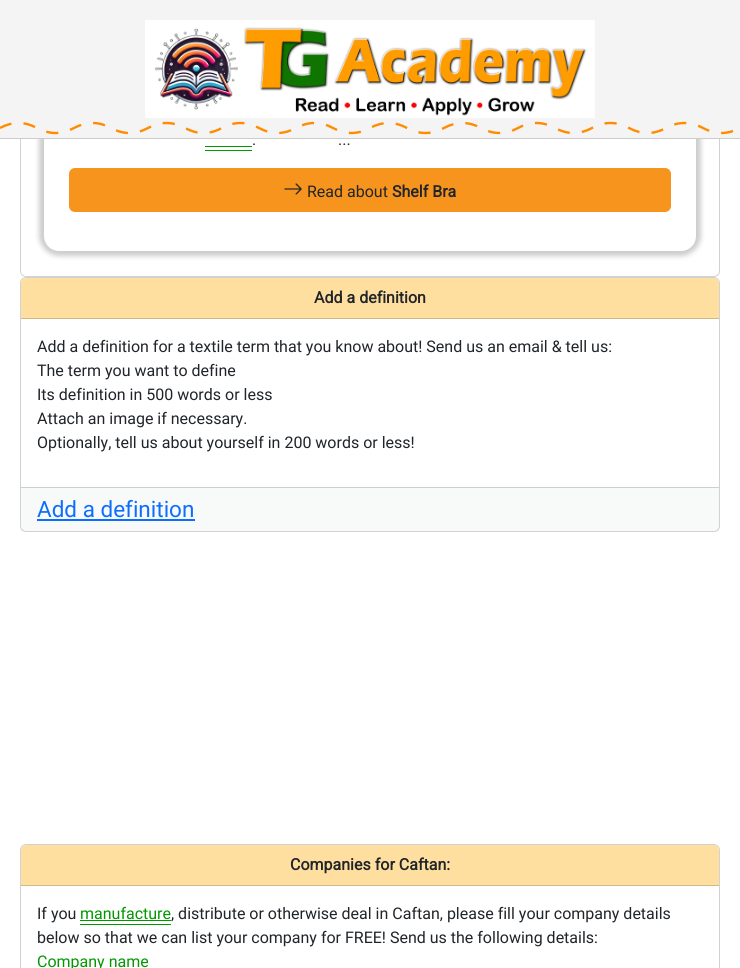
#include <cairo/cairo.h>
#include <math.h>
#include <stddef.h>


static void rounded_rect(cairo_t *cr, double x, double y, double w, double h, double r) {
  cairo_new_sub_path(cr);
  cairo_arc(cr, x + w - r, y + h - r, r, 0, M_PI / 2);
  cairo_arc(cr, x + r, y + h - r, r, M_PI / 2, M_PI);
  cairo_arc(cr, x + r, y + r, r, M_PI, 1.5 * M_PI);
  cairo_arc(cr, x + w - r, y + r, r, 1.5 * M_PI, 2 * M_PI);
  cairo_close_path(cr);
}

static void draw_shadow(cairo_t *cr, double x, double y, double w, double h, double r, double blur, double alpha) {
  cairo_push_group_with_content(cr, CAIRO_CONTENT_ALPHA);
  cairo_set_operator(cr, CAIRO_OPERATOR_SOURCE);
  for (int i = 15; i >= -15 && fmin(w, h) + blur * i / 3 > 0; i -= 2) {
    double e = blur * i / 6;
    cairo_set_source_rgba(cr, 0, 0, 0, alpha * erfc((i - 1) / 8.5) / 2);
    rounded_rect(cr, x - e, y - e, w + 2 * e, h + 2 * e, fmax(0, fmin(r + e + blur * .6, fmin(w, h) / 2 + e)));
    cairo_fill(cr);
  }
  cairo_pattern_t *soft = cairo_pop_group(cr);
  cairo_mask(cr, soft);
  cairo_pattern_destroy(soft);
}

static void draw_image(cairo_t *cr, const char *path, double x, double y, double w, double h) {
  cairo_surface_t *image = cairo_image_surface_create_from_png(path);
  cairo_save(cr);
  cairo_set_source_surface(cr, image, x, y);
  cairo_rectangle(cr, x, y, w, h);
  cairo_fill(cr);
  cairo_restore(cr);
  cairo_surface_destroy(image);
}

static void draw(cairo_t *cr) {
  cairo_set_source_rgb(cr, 1, 1, 1);
  cairo_paint(cr);
  rounded_rect(cr, 20.5, -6.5, 699, 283, 5.5);
  cairo_set_source_rgb(cr, 210 / 255.0, 210 / 255.0, 210 / 255.0);
  cairo_set_line_width(cr, 1);
  cairo_stroke(cr);
  cairo_set_source_rgb(cr, 0, 0, 0);
  draw_shadow(cr, 39, -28, 662, 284, 20, 2.5, 0.2);
  cairo_set_source_rgb(cr, 1, 1, 1);
  rounded_rect(cr, 44, -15, 652, 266, 15);
  cairo_fill(cr);
  cairo_set_source_rgb(cr, 244 / 255.0, 244 / 255.0, 244 / 255.0);
  cairo_rectangle(cr, 0, 0, 740, 138);
  cairo_fill(cr);
  cairo_set_source_rgb(cr, 204 / 255.0, 204 / 255.0, 204 / 255.0);
  cairo_rectangle(cr, 0, 138, 740, 1);
  cairo_fill(cr);
  draw_image(cr, "images/1.png", 145, 20, 450, 98);
  draw_image(cr, "images/2.png", 0, 121, 734, 14);
  cairo_set_source_rgb(cr, 0, 153 / 255.0, 0);
  cairo_rectangle(cr, 205, 146, 47, 1);
  cairo_fill(cr);
  cairo_rectangle(cr, 205, 150, 47, 1);
  cairo_fill(cr);
  cairo_set_source_rgb(cr, 247 / 255.0, 148 / 255.0, 30 / 255.0);
  rounded_rect(cr, 69, 168, 602, 44, 6);
  cairo_fill(cr);
  draw_image(cr, "images/3.png", 284, 183, 18, 12);
  rounded_rect(cr, 20.5, 277.5, 699, 254, 5.5);
  cairo_set_source_rgb(cr, 210 / 255.0, 210 / 255.0, 210 / 255.0);
  cairo_stroke(cr);
  cairo_set_source_rgb(cr, 1, 223 / 255.0, 160 / 255.0);
  cairo_new_path(cr);
  cairo_move_to(cr, 26, 278);
  cairo_line_to(cr, 714, 278);
  cairo_curve_to(cr, 717, 278, 719, 280, 719, 283);
  cairo_line_to(cr, 719, 319);
  cairo_line_to(cr, 21, 319);
  cairo_line_to(cr, 21, 283);
  cairo_curve_to(cr, 21, 280, 23, 278, 26, 278);
  cairo_close_path(cr);
  cairo_fill(cr);
  cairo_set_source_rgb(cr, 210 / 255.0, 184 / 255.0, 132 / 255.0);
  cairo_rectangle(cr, 21, 318, 698, 1);
  cairo_fill(cr);
  cairo_set_source_rgba(cr, 33 / 255.0, 37 / 255.0, 41 / 255.0, 0.03);
  cairo_rectangle(cr, 21, 488, 698, 43);
  cairo_fill(cr);
  cairo_set_source_rgb(cr, 205 / 255.0, 205 / 255.0, 205 / 255.0);
  cairo_rectangle(cr, 21, 487, 698, 1);
  cairo_fill(cr);
  cairo_set_source_rgb(cr, 13 / 255.0, 110 / 255.0, 253 / 255.0);
  cairo_rectangle(cr, 37, 519, 158, 2);
  cairo_fill(cr);
  rounded_rect(cr, 20.5, 844.5, 699, 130, 5.5);
  cairo_set_source_rgb(cr, 210 / 255.0, 210 / 255.0, 210 / 255.0);
  cairo_stroke(cr);
  cairo_set_source_rgb(cr, 1, 223 / 255.0, 160 / 255.0);
  cairo_new_path(cr);
  cairo_move_to(cr, 26, 845);
  cairo_line_to(cr, 714, 845);
  cairo_curve_to(cr, 717, 845, 719, 847, 719, 850);
  cairo_line_to(cr, 719, 886);
  cairo_line_to(cr, 21, 886);
  cairo_line_to(cr, 21, 850);
  cairo_curve_to(cr, 21, 847, 23, 845, 26, 845);
  cairo_close_path(cr);
  cairo_fill(cr);
  cairo_set_source_rgb(cr, 210 / 255.0, 184 / 255.0, 132 / 255.0);
  cairo_rectangle(cr, 21, 885, 698, 1);
  cairo_fill(cr);
  cairo_set_source_rgb(cr, 0, 153 / 255.0, 0);
  cairo_rectangle(cr, 80, 924, 91, 1);
  cairo_fill(cr);
  cairo_rectangle(cr, 80, 920, 91, 1);
  cairo_fill(cr);
  cairo_select_font_face(cr, "Roboto", CAIRO_FONT_SLANT_NORMAL, CAIRO_FONT_WEIGHT_NORMAL);
  cairo_set_font_size(cr, 16);
  cairo_set_source_rgb(cr, 51 / 255.0, 51 / 255.0, 51 / 255.0);
  cairo_move_to(cr, 252, 145);
  cairo_show_text(cr, ".");
  cairo_move_to(cr, 338, 145);
  cairo_show_text(cr, "...");
  cairo_set_source_rgb(cr, 33 / 255.0, 37 / 255.0, 41 / 255.0);
  cairo_move_to(cr, 307, 197);
  cairo_show_text(cr, "Read about");
  cairo_select_font_face(cr, "Roboto", CAIRO_FONT_SLANT_NORMAL, CAIRO_FONT_WEIGHT_BOLD);
  cairo_move_to(cr, 392, 197);
  cairo_show_text(cr, "Shelf Bra");
  cairo_move_to(cr, 314, 303);
  cairo_show_text(cr, "Add a definition");
  cairo_select_font_face(cr, "Roboto", CAIRO_FONT_SLANT_NORMAL, CAIRO_FONT_WEIGHT_NORMAL);
  cairo_move_to(cr, 37, 352);
  cairo_show_text(cr, "Add a definition for a textile term that you know about! Send us an email & tell us:");
  cairo_move_to(cr, 37, 376);
  cairo_show_text(cr, "The term you want to define");
  cairo_move_to(cr, 37, 400);
  cairo_show_text(cr, "Its definition in 500 words or less");
  cairo_move_to(cr, 37, 424);
  cairo_show_text(cr, "Attach an image if necessary.");
  cairo_move_to(cr, 37, 448);
  cairo_show_text(cr, "Optionally, tell us about yourself in 200 words or less!");
  cairo_set_font_size(cr, 22.5);
  cairo_set_source_rgb(cr, 13 / 255.0, 110 / 255.0, 253 / 255.0);
  cairo_move_to(cr, 37, 517);
  cairo_show_text(cr, "Add a definition");
  cairo_select_font_face(cr, "Roboto", CAIRO_FONT_SLANT_NORMAL, CAIRO_FONT_WEIGHT_BOLD);
  cairo_set_font_size(cr, 16);
  cairo_set_source_rgb(cr, 33 / 255.0, 37 / 255.0, 41 / 255.0);
  cairo_move_to(cr, 290, 870);
  cairo_show_text(cr, "Companies for Caftan:");
  cairo_select_font_face(cr, "Roboto", CAIRO_FONT_SLANT_NORMAL, CAIRO_FONT_WEIGHT_NORMAL);
  cairo_move_to(cr, 37, 919);
  cairo_show_text(cr, "If you");
  cairo_set_source_rgb(cr, 0, 153 / 255.0, 0);
  cairo_move_to(cr, 80, 919);
  cairo_show_text(cr, "manufacture");
  cairo_set_source_rgb(cr, 33 / 255.0, 37 / 255.0, 41 / 255.0);
  cairo_move_to(cr, 171, 919);
  cairo_show_text(cr, ", distribute or otherwise deal in Caftan, please fill your company details");
  cairo_move_to(cr, 37, 943);
  cairo_show_text(cr, "below so that we can list your company for FREE! Send us the following details:");
  cairo_set_source_rgb(cr, 0, 153 / 255.0, 0);
  cairo_move_to(cr, 37, 967);
  cairo_show_text(cr, "Company name");
}

int main(void) {
  cairo_surface_t *surface = cairo_image_surface_create(CAIRO_FORMAT_RGB24, 740, 968);
  cairo_t *cr = cairo_create(surface);
  cairo_font_options_t *options = cairo_font_options_create();
  cairo_font_options_set_hint_metrics(options, CAIRO_HINT_METRICS_OFF);
  cairo_font_options_set_hint_style(options, CAIRO_HINT_STYLE_NONE);
  cairo_set_font_options(cr, options);
  cairo_set_miter_limit(cr, 4);
  draw(cr);
  cairo_surface_write_to_png(surface, "out.png");
  cairo_font_options_destroy(options);
  cairo_destroy(cr);
  cairo_surface_destroy(surface);
  return 0;
}
